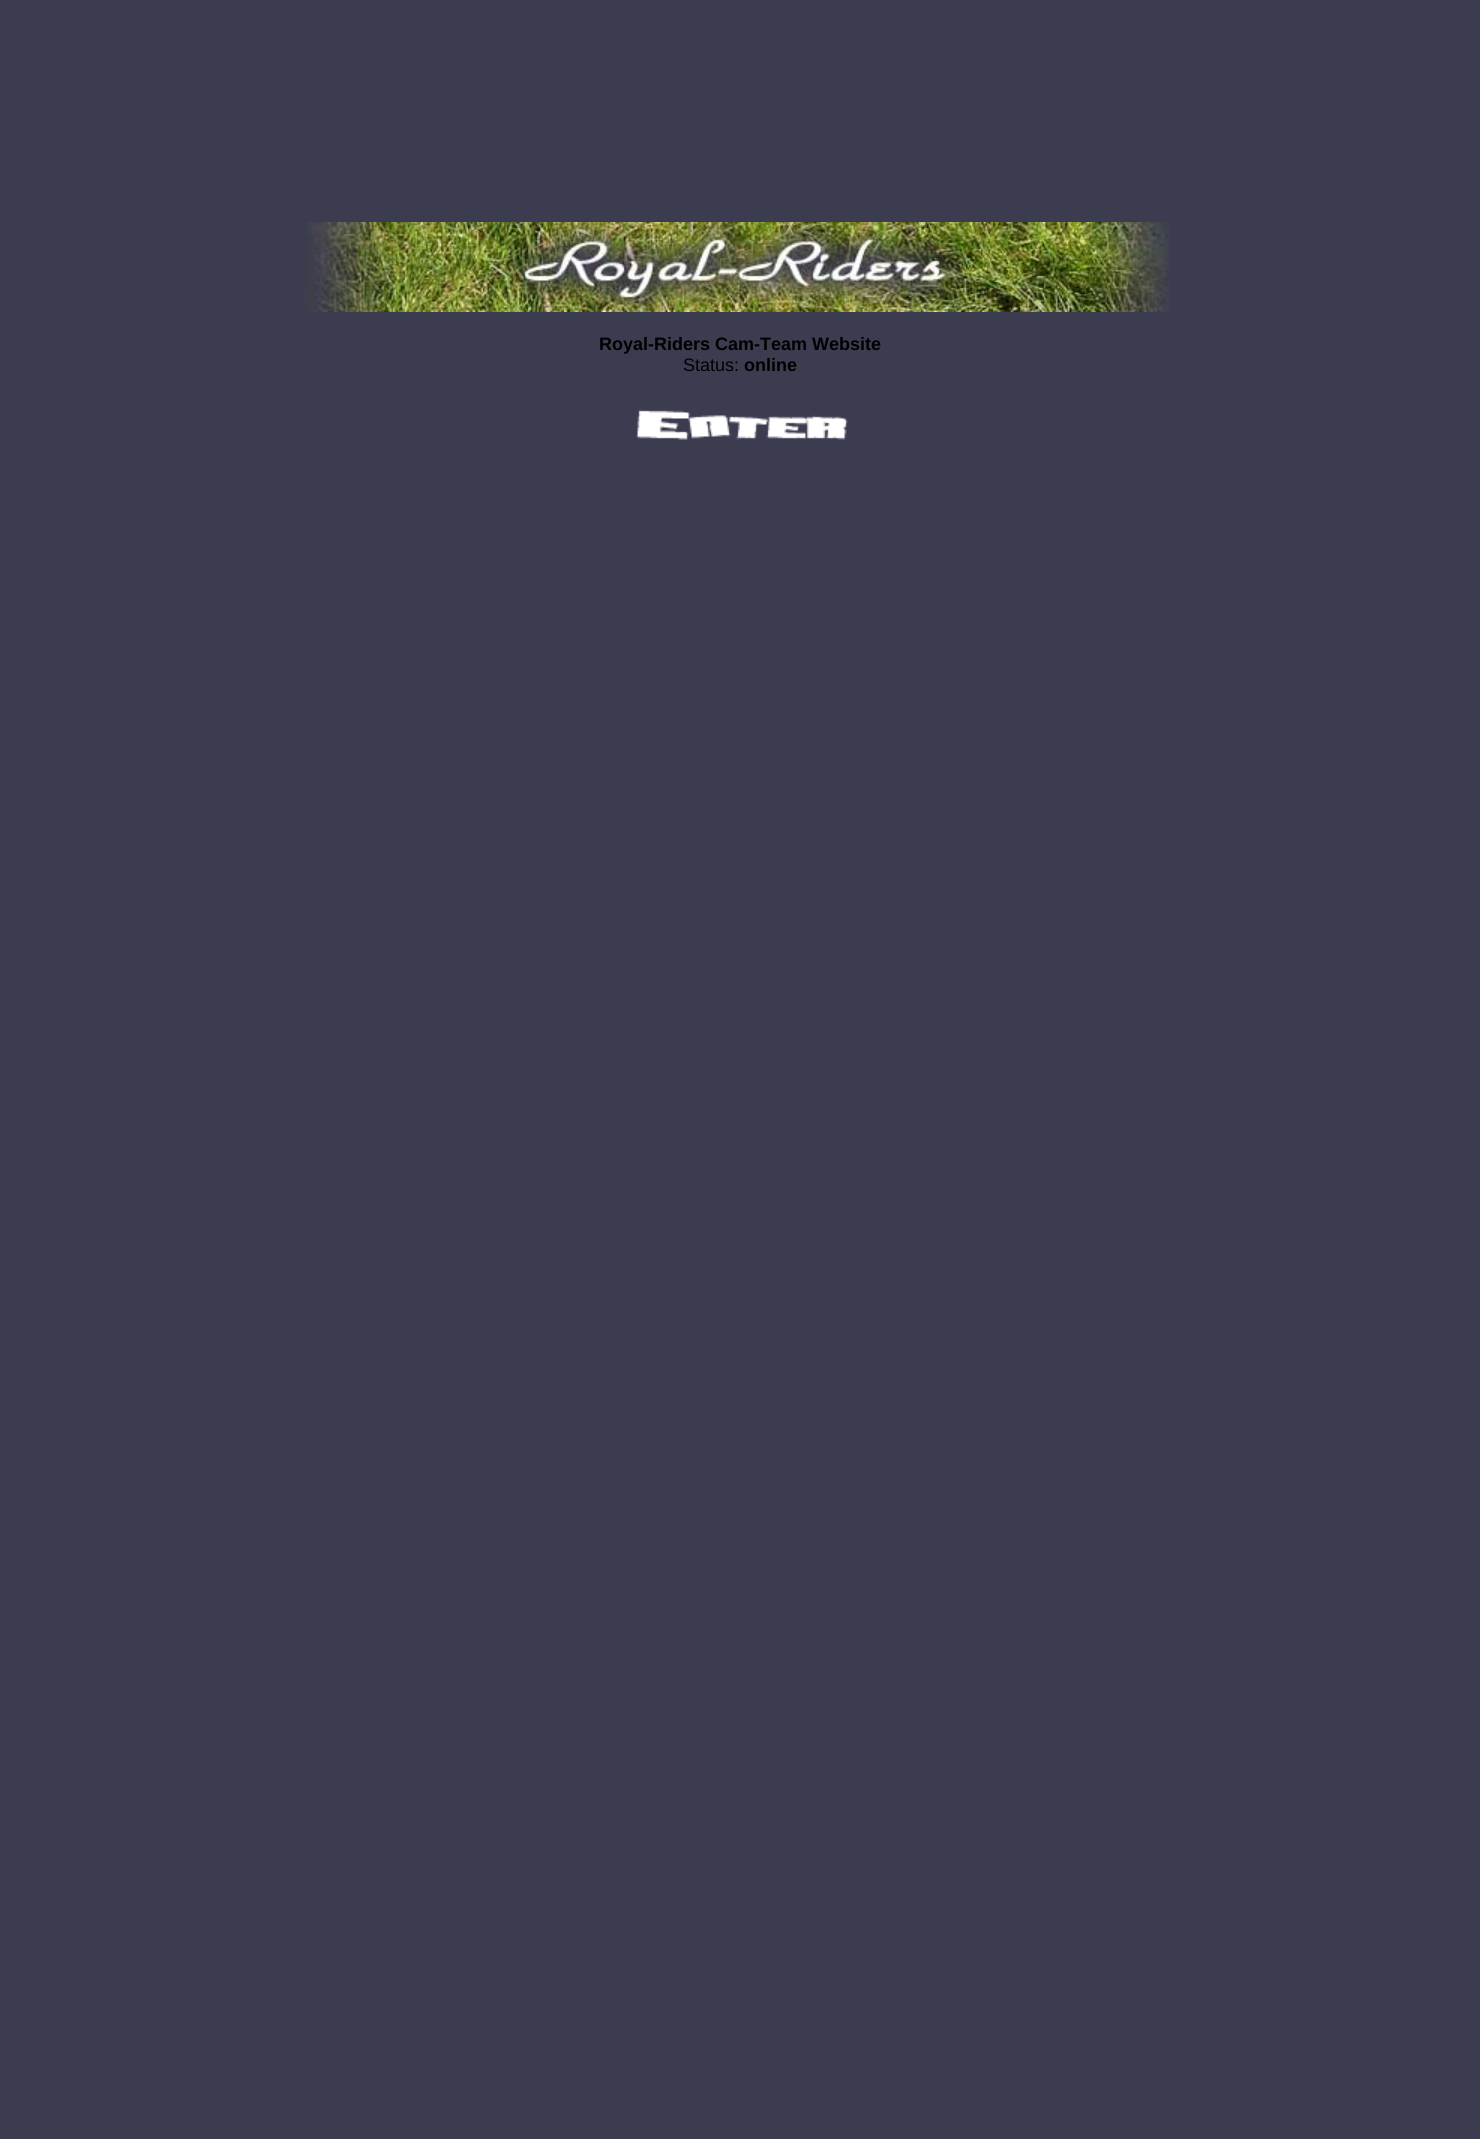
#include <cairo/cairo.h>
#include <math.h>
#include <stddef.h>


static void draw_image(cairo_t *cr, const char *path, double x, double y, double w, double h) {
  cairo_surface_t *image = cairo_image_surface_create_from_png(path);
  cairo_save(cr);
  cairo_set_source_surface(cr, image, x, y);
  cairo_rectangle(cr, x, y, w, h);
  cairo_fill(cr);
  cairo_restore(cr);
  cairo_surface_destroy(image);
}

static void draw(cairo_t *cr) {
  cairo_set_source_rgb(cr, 60 / 255.0, 60 / 255.0, 80 / 255.0);
  cairo_paint(cr);
  draw_image(cr, "images/1.png", 305, 222, 865, 90);
  draw_image(cr, "images/2.png", 636, 409, 212, 31);
  cairo_select_font_face(cr, "Liberation Sans", CAIRO_FONT_SLANT_NORMAL, CAIRO_FONT_WEIGHT_BOLD);
  cairo_set_font_size(cr, 18);
  cairo_set_source_rgb(cr, 0, 0, 0);
  cairo_move_to(cr, 599, 350);
  cairo_show_text(cr, "Royal-Riders Cam-Team Website");
  cairo_select_font_face(cr, "Liberation Sans", CAIRO_FONT_SLANT_NORMAL, CAIRO_FONT_WEIGHT_NORMAL);
  cairo_move_to(cr, 683, 371);
  cairo_show_text(cr, "Status:");
  cairo_select_font_face(cr, "Liberation Sans", CAIRO_FONT_SLANT_NORMAL, CAIRO_FONT_WEIGHT_BOLD);
  cairo_move_to(cr, 744, 371);
  cairo_show_text(cr, "online");
}

int main(void) {
  cairo_surface_t *surface = cairo_image_surface_create(CAIRO_FORMAT_RGB24, 1480, 2139);
  cairo_t *cr = cairo_create(surface);
  cairo_font_options_t *options = cairo_font_options_create();
  cairo_font_options_set_hint_metrics(options, CAIRO_HINT_METRICS_OFF);
  cairo_font_options_set_hint_style(options, CAIRO_HINT_STYLE_NONE);
  cairo_set_font_options(cr, options);
  cairo_set_miter_limit(cr, 4);
  draw(cr);
  cairo_surface_write_to_png(surface, "out.png");
  cairo_font_options_destroy(options);
  cairo_destroy(cr);
  cairo_surface_destroy(surface);
  return 0;
}
